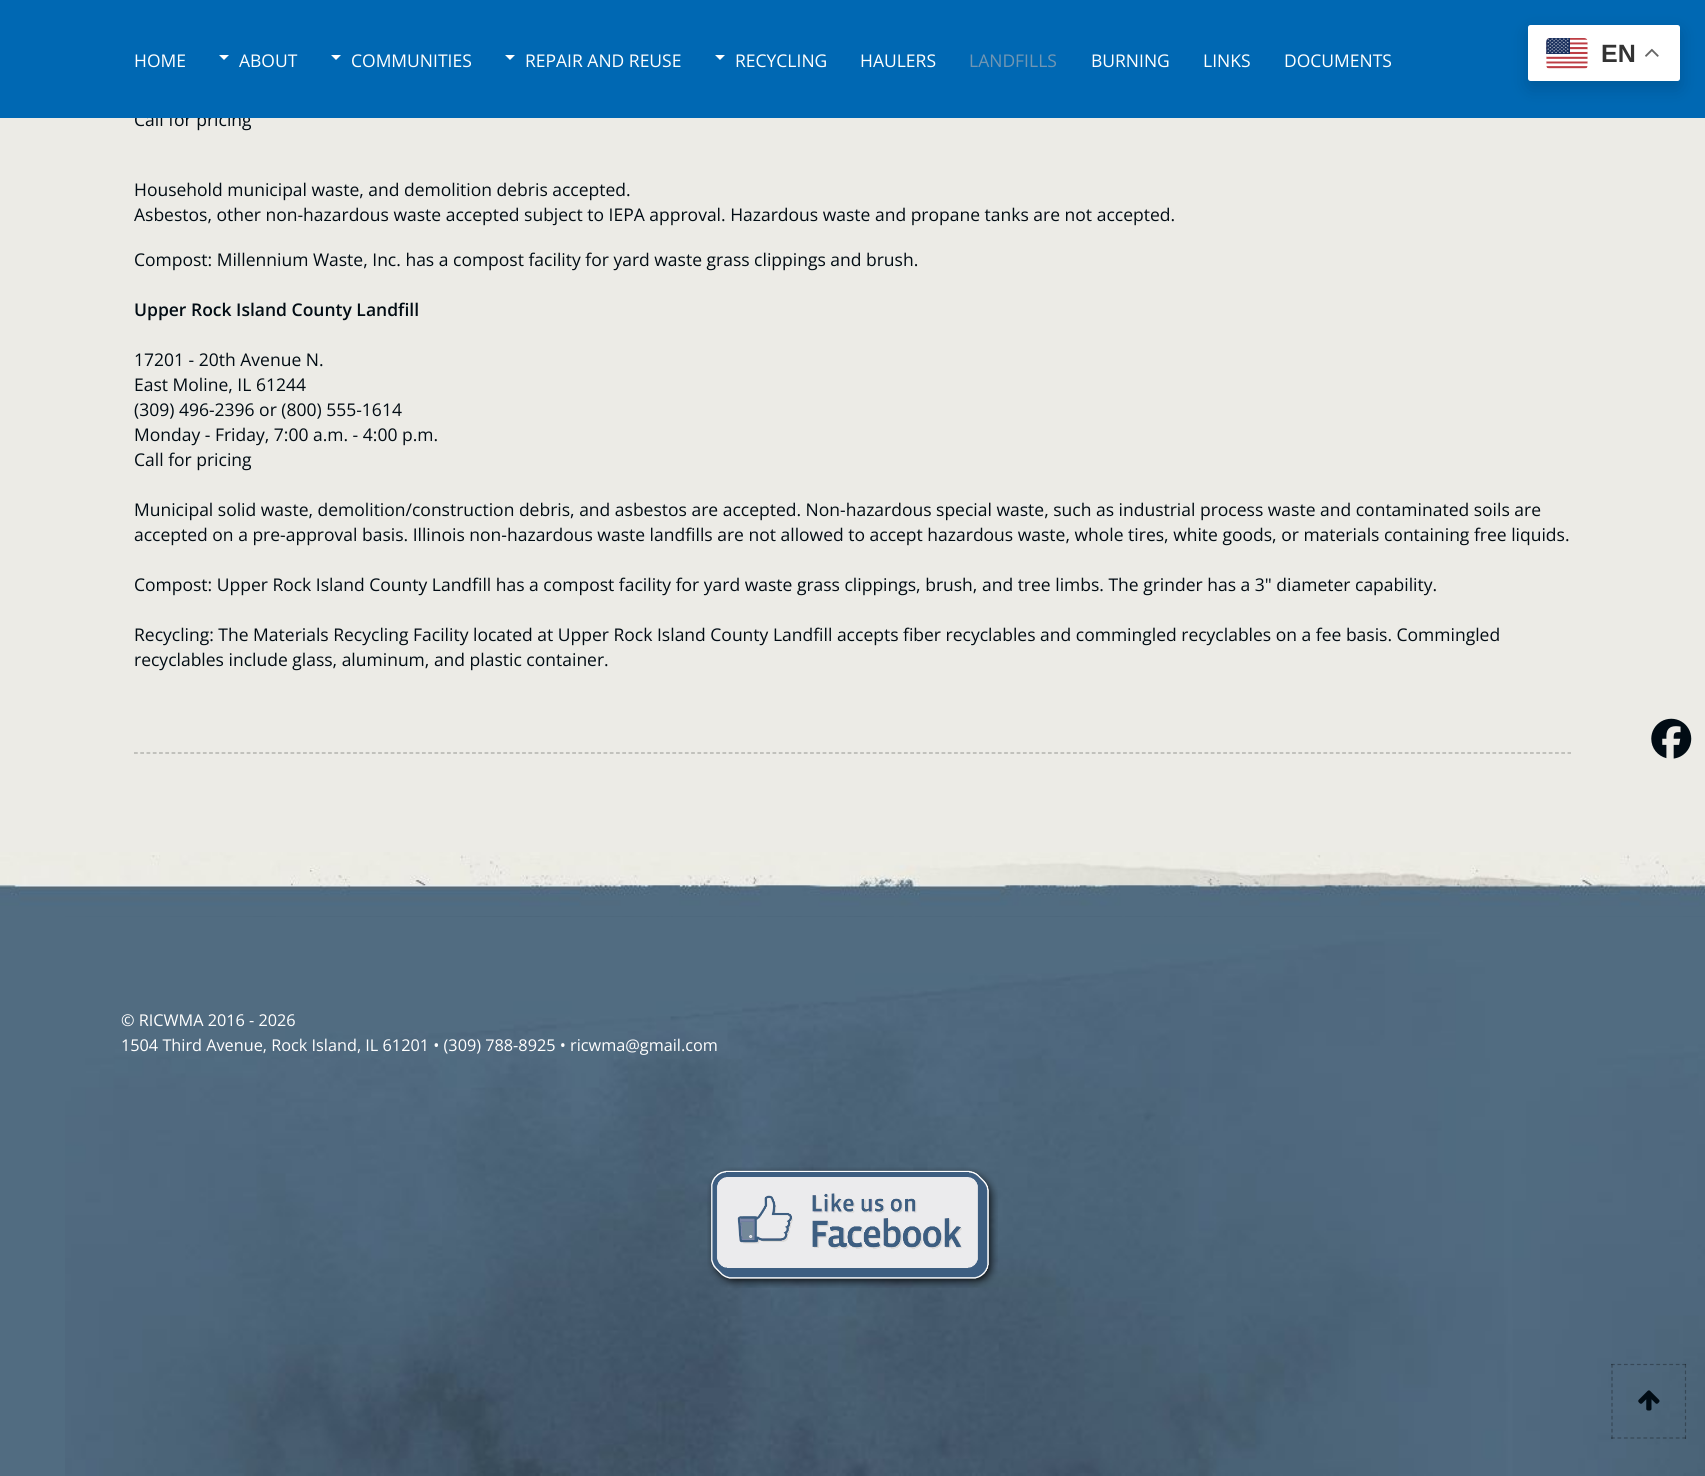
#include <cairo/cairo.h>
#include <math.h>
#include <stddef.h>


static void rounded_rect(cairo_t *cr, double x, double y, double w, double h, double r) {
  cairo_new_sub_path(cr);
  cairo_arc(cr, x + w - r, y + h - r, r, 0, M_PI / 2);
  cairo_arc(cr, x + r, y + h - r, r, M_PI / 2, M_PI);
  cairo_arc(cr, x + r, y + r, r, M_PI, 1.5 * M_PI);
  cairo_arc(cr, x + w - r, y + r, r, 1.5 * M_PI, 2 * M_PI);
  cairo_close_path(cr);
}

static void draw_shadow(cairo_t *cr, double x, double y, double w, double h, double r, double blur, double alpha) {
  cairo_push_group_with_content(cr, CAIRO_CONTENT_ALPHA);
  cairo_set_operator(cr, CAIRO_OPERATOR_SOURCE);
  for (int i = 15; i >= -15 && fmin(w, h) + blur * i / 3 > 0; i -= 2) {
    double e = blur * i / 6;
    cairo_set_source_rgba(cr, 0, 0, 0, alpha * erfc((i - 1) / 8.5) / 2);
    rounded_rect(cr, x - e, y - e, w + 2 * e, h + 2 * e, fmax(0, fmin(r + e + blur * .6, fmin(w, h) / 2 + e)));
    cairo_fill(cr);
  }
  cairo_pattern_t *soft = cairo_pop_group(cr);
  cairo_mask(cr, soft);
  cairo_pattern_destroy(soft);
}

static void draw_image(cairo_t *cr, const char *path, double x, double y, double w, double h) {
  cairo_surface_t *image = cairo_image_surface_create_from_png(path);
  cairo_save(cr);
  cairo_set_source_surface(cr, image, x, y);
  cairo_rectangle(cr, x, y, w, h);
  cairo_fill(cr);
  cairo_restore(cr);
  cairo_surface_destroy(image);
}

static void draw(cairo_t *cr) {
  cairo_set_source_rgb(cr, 236 / 255.0, 235 / 255.0, 230 / 255.0);
  cairo_paint(cr);
  cairo_set_source_rgb(cr, 81 / 255.0, 108 / 255.0, 129 / 255.0);
  cairo_rectangle(cr, 0, 916, 1705, 560);
  cairo_fill(cr);
  draw_image(cr, "images/1.png", 65, 916, 1640, 560);
  draw_image(cr, "images/4.png", 707, 1167, 291, 121);
  cairo_new_path(cr);
  cairo_move_to(cr, 134, 753);
  cairo_line_to(cr, 1571, 753);
  cairo_set_source_rgb(cr, 165 / 255.0, 165 / 255.0, 161 / 255.0);
  cairo_set_line_width(cr, 1.2);
  cairo_set_dash(cr, (double[]){3.75, 2.51}, 2, 0);
  cairo_stroke(cr);
  draw_image(cr, "images/5.png", 0, 852, 1705, 65);
  cairo_new_path(cr);
  cairo_move_to(cr, 1611, 1364.5);
  cairo_line_to(cr, 1686, 1364.5);
  cairo_set_source_rgba(cr, 0, 0, 0, 0.3);
  cairo_set_dash(cr, (double[]){3.75, 2.73}, 2, 0);
  cairo_stroke(cr);
  cairo_new_path(cr);
  cairo_move_to(cr, 1685.5, 1364);
  cairo_line_to(cr, 1685.5, 1439);
  cairo_stroke(cr);
  cairo_new_path(cr);
  cairo_move_to(cr, 1611, 1438);
  cairo_line_to(cr, 1686, 1438);
  cairo_stroke(cr);
  cairo_new_path(cr);
  cairo_move_to(cr, 1612, 1364);
  cairo_line_to(cr, 1612, 1439);
  cairo_stroke(cr);
  draw_image(cr, "images/6.png", 1638, 1390, 22, 21);
  draw_image(cr, "images/7.png", 1651, 718, 41, 41);
  cairo_select_font_face(cr, "Open Sans", CAIRO_FONT_SLANT_NORMAL, CAIRO_FONT_WEIGHT_NORMAL);
  cairo_set_font_size(cr, 16.25);
  cairo_set_source_rgb(cr, 1, 1, 1);
  cairo_move_to(cr, 121, 1026);
  cairo_show_text(cr, "© RICWMA 2016 - 2026");
  cairo_move_to(cr, 121, 1051);
  cairo_show_text(cr, "1504 Third Avenue, Rock Island, IL 61201 • (309) 788-8925 • ricwma@gmail.com");
  cairo_set_font_size(cr, 17.5);
  cairo_set_source_rgb(cr, 1 / 255.0, 12 / 255.0, 20 / 255.0);
  cairo_move_to(cr, 134, 126);
  cairo_show_text(cr, "Call for pricing");
  cairo_set_source_rgb(cr, 0, 104 / 255.0, 179 / 255.0);
  cairo_rectangle(cr, 0, 0, 1705, 118);
  cairo_fill(cr);
  cairo_set_source_rgb(cr, 0, 0, 0);
  draw_shadow(cr, 1528, 31, 152, 57, 2.5, 9.5, 0.15);
  cairo_set_source_rgb(cr, 1, 1, 1);
  rounded_rect(cr, 1528, 25, 152, 56, 2.5);
  cairo_fill(cr);
  draw_image(cr, "images/3.png", 1645, 48, 14, 9);
  cairo_select_font_face(cr, "Liberation Sans", CAIRO_FONT_SLANT_NORMAL, CAIRO_FONT_WEIGHT_BOLD);
  cairo_set_font_size(cr, 25);
  cairo_set_source_rgb(cr, 51 / 255.0, 51 / 255.0, 51 / 255.0);
  cairo_move_to(cr, 1601, 62);
  cairo_show_text(cr, "EN");
  draw_image(cr, "images/2.png", 1546, 38, 42, 31);
  cairo_select_font_face(cr, "Open Sans", CAIRO_FONT_SLANT_NORMAL, CAIRO_FONT_WEIGHT_NORMAL);
  cairo_set_font_size(cr, 17.5);
  cairo_set_source_rgb(cr, 1, 1, 1);
  cairo_move_to(cr, 1284, 67);
  cairo_show_text(cr, "DOCUMENTS");
  cairo_move_to(cr, 1203, 67);
  cairo_show_text(cr, "LINKS");
  cairo_move_to(cr, 1091, 67);
  cairo_show_text(cr, "BURNING");
  cairo_set_source_rgb(cr, 113 / 255.0, 150 / 255.0, 179 / 255.0);
  cairo_move_to(cr, 969, 67);
  cairo_show_text(cr, "LANDFILLS");
  cairo_set_source_rgb(cr, 1, 1, 1);
  cairo_move_to(cr, 860, 67);
  cairo_show_text(cr, "HAULERS");
  cairo_move_to(cr, 735, 67);
  cairo_show_text(cr, "RECYCLING");
  cairo_new_path(cr);
  cairo_move_to(cr, 715, 55);
  cairo_line_to(cr, 725, 55);
  cairo_line_to(cr, 720, 60);
  cairo_close_path(cr);
  cairo_fill(cr);
  cairo_move_to(cr, 525, 67);
  cairo_show_text(cr, "REPAIR AND REUSE");
  cairo_new_path(cr);
  cairo_move_to(cr, 505, 55);
  cairo_line_to(cr, 515, 55);
  cairo_line_to(cr, 510, 60);
  cairo_close_path(cr);
  cairo_fill(cr);
  cairo_move_to(cr, 351, 67);
  cairo_show_text(cr, "COMMUNITIES");
  cairo_new_path(cr);
  cairo_move_to(cr, 331, 55);
  cairo_line_to(cr, 341, 55);
  cairo_line_to(cr, 336, 60);
  cairo_close_path(cr);
  cairo_fill(cr);
  cairo_move_to(cr, 239, 67);
  cairo_show_text(cr, "ABOUT");
  cairo_new_path(cr);
  cairo_move_to(cr, 219, 55);
  cairo_line_to(cr, 229, 55);
  cairo_line_to(cr, 224, 60);
  cairo_close_path(cr);
  cairo_fill(cr);
  cairo_move_to(cr, 134, 67);
  cairo_show_text(cr, "HOME");
  cairo_set_source_rgb(cr, 1 / 255.0, 12 / 255.0, 20 / 255.0);
  cairo_move_to(cr, 134, 196);
  cairo_show_text(cr, "Household municipal waste, and demolition debris accepted.");
  cairo_move_to(cr, 134, 221);
  cairo_show_text(cr, "Asbestos, other non-hazardous waste accepted subject to IEPA approval. Hazardous waste and propane tanks are not accepted.");
  cairo_move_to(cr, 134, 266);
  cairo_show_text(cr, "Compost: Millennium Waste, Inc. has a compost facility for yard waste grass clippings and brush.");
  cairo_select_font_face(cr, "Open Sans SemiBold", CAIRO_FONT_SLANT_NORMAL, CAIRO_FONT_WEIGHT_NORMAL);
  cairo_move_to(cr, 134, 316);
  cairo_show_text(cr, "Upper Rock Island County Landfill");
  cairo_select_font_face(cr, "Open Sans", CAIRO_FONT_SLANT_NORMAL, CAIRO_FONT_WEIGHT_NORMAL);
  cairo_move_to(cr, 134, 366);
  cairo_show_text(cr, "17201 - 20th Avenue N.");
  cairo_move_to(cr, 134, 391);
  cairo_show_text(cr, "East Moline, IL 61244");
  cairo_move_to(cr, 134, 416);
  cairo_show_text(cr, "(309) 496-2396 or (800) 555-1614");
  cairo_move_to(cr, 134, 441);
  cairo_show_text(cr, "Monday - Friday, 7:00 a.m. - 4:00 p.m.");
  cairo_move_to(cr, 134, 466);
  cairo_show_text(cr, "Call for pricing");
  cairo_move_to(cr, 134, 516);
  cairo_show_text(cr, "Municipal solid waste, demolition/construction debris, and asbestos are accepted. Non-hazardous special waste, such as industrial process waste and contaminated soils are");
  cairo_move_to(cr, 134, 541);
  cairo_show_text(cr, "accepted on a pre-approval basis. Illinois non-hazardous waste landfills are not allowed to accept hazardous waste, whole tires, white goods, or materials containing free liquids.");
  cairo_move_to(cr, 134, 591);
  cairo_show_text(cr, "Compost: Upper Rock Island County Landfill has a compost facility for yard waste grass clippings, brush, and tree limbs. The grinder has a 3\" diameter capability.");
  cairo_move_to(cr, 134, 641);
  cairo_show_text(cr, "Recycling: The Materials Recycling Facility located at Upper Rock Island County Landfill accepts fiber recyclables and commingled recyclables on a fee basis. Commingled");
  cairo_move_to(cr, 134, 666);
  cairo_show_text(cr, "recyclables include glass, aluminum, and plastic container.");
}

int main(void) {
  cairo_surface_t *surface = cairo_image_surface_create(CAIRO_FORMAT_RGB24, 1705, 1476);
  cairo_t *cr = cairo_create(surface);
  cairo_font_options_t *options = cairo_font_options_create();
  cairo_font_options_set_hint_metrics(options, CAIRO_HINT_METRICS_OFF);
  cairo_font_options_set_hint_style(options, CAIRO_HINT_STYLE_NONE);
  cairo_set_font_options(cr, options);
  cairo_set_miter_limit(cr, 4);
  draw(cr);
  cairo_surface_write_to_png(surface, "out.png");
  cairo_font_options_destroy(options);
  cairo_destroy(cr);
  cairo_surface_destroy(surface);
  return 0;
}
